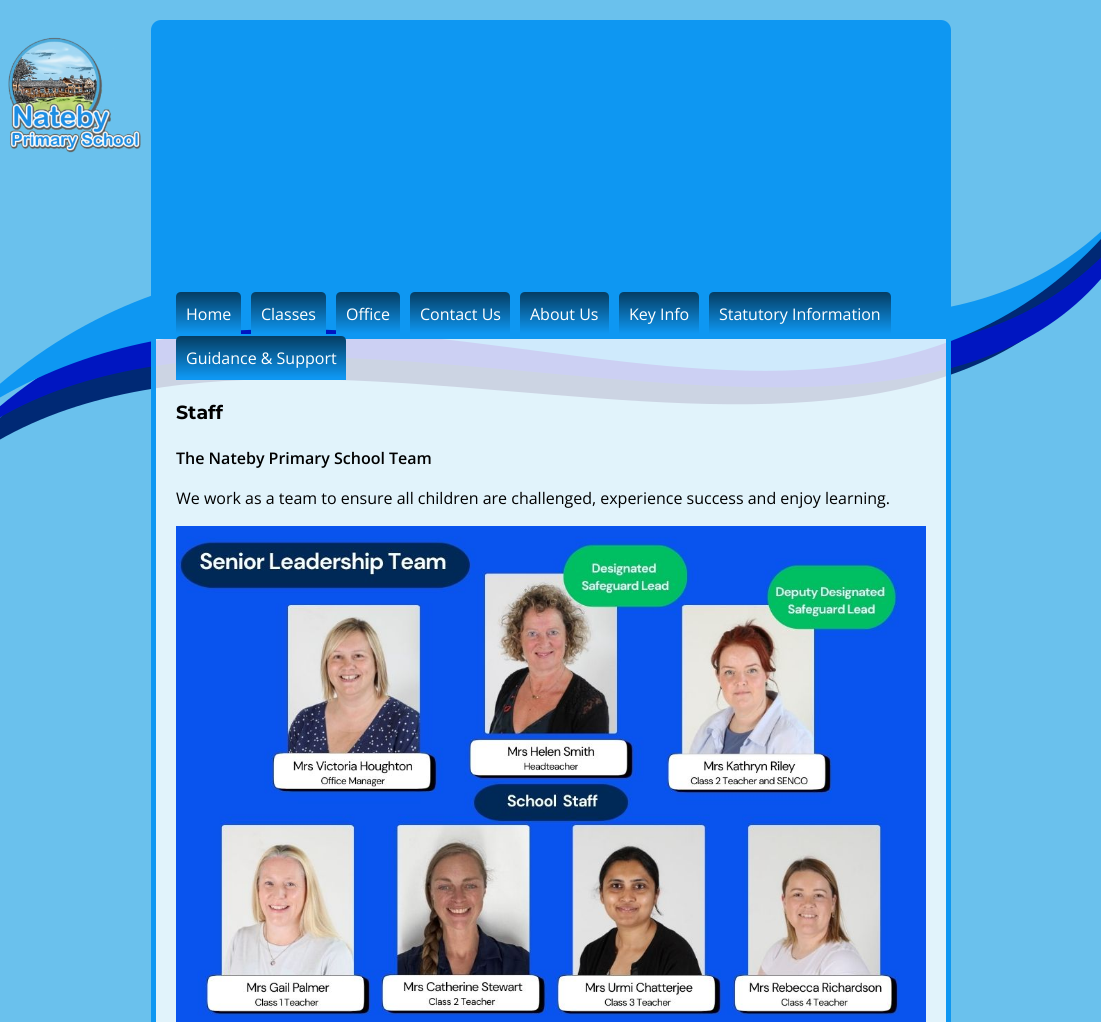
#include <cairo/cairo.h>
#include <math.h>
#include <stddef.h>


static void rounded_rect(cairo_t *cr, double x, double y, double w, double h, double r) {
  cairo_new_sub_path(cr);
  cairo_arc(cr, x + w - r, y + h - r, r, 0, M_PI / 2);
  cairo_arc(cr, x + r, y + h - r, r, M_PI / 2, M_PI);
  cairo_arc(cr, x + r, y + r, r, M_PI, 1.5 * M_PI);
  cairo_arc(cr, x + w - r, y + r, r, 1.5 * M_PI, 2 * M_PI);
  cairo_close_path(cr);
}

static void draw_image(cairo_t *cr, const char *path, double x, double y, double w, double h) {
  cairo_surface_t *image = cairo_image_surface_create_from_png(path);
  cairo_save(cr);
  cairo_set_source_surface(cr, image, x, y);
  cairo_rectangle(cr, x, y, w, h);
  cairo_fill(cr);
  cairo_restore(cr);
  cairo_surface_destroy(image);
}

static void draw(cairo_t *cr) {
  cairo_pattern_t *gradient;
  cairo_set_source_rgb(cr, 106 / 255.0, 193 / 255.0, 237 / 255.0);
  cairo_paint(cr);
  draw_image(cr, "images/1.png", 8, 37, 133, 116);
  cairo_set_source_rgb(cr, 14 / 255.0, 151 / 255.0, 242 / 255.0);
  rounded_rect(cr, 151, 20, 800, 350, 10);
  cairo_fill(cr);
  cairo_set_source_rgb(cr, 0, 41 / 255.0, 117 / 255.0);
  cairo_new_path(cr);
  cairo_move_to(cr, 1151, 184);
  cairo_curve_to(cr, 795, 616, 288, 37, -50, 474);
  cairo_curve_to(cr, 271, 208, 958, 635, 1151, 184);
  cairo_close_path(cr);
  cairo_fill(cr);
  cairo_set_source_rgb(cr, 0, 22 / 255.0, 193 / 255.0);
  cairo_new_path(cr);
  cairo_move_to(cr, 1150, 199);
  cairo_curve_to(cr, 879, 592, 343, 43, -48, 451);
  cairo_curve_to(cr, 263, 188, 979, 604, 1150, 199);
  cairo_close_path(cr);
  cairo_fill(cr);
  cairo_set_source_rgb(cr, 14 / 255.0, 151 / 255.0, 242 / 255.0);
  cairo_new_path(cr);
  cairo_move_to(cr, 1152, 174);
  cairo_curve_to(cr, 883, 547, 343, 18, -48, 429);
  cairo_curve_to(cr, 338, 142, 861, 610, 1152, 174);
  cairo_close_path(cr);
  cairo_fill(cr);
  cairo_set_source_rgba(cr, 1, 1, 1, 0.8);
  rounded_rect(cr, 153.5, 336.5, 795, 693, 2.5);
  cairo_fill_preserve(cr);
  cairo_set_source_rgb(cr, 14 / 255.0, 151 / 255.0, 242 / 255.0);
  cairo_set_line_width(cr, 5);
  cairo_stroke(cr);
  gradient = cairo_pattern_create_linear(209, 292, 209, 336);
  cairo_pattern_add_color_stop_rgba(gradient, 0, 5 / 255.0, 61 / 255.0, 98 / 255.0, 1);
  cairo_pattern_add_color_stop_rgba(gradient, 0.95, 14 / 255.0, 151 / 255.0, 242 / 255.0, 1);
  cairo_set_source(cr, gradient);
  cairo_pattern_destroy(gradient);
  cairo_new_path(cr);
  cairo_move_to(cr, 181, 292);
  cairo_line_to(cr, 236, 292);
  cairo_curve_to(cr, 239, 292, 241, 294, 241, 297);
  cairo_line_to(cr, 241, 336);
  cairo_line_to(cr, 176, 336);
  cairo_line_to(cr, 176, 297);
  cairo_curve_to(cr, 176, 294, 178, 292, 181, 292);
  cairo_close_path(cr);
  cairo_fill(cr);
  gradient = cairo_pattern_create_linear(289, 292, 289, 336);
  cairo_pattern_add_color_stop_rgba(gradient, 0, 5 / 255.0, 61 / 255.0, 98 / 255.0, 1);
  cairo_pattern_add_color_stop_rgba(gradient, 0.95, 14 / 255.0, 151 / 255.0, 242 / 255.0, 1);
  cairo_set_source(cr, gradient);
  cairo_pattern_destroy(gradient);
  cairo_new_path(cr);
  cairo_move_to(cr, 256, 292);
  cairo_line_to(cr, 321, 292);
  cairo_curve_to(cr, 324, 292, 326, 294, 326, 297);
  cairo_line_to(cr, 326, 336);
  cairo_line_to(cr, 251, 336);
  cairo_line_to(cr, 251, 297);
  cairo_curve_to(cr, 251, 294, 253, 292, 256, 292);
  cairo_close_path(cr);
  cairo_fill(cr);
  gradient = cairo_pattern_create_linear(368, 292, 368, 336);
  cairo_pattern_add_color_stop_rgba(gradient, 0, 5 / 255.0, 61 / 255.0, 98 / 255.0, 1);
  cairo_pattern_add_color_stop_rgba(gradient, 0.95, 14 / 255.0, 151 / 255.0, 242 / 255.0, 1);
  cairo_set_source(cr, gradient);
  cairo_pattern_destroy(gradient);
  cairo_new_path(cr);
  cairo_move_to(cr, 341, 292);
  cairo_line_to(cr, 395, 292);
  cairo_curve_to(cr, 398, 292, 400, 294, 400, 297);
  cairo_line_to(cr, 400, 336);
  cairo_line_to(cr, 336, 336);
  cairo_line_to(cr, 336, 297);
  cairo_curve_to(cr, 336, 294, 338, 292, 341, 292);
  cairo_close_path(cr);
  cairo_fill(cr);
  gradient = cairo_pattern_create_linear(460, 292, 460, 336);
  cairo_pattern_add_color_stop_rgba(gradient, 0, 5 / 255.0, 61 / 255.0, 98 / 255.0, 1);
  cairo_pattern_add_color_stop_rgba(gradient, 0.95, 14 / 255.0, 151 / 255.0, 242 / 255.0, 1);
  cairo_set_source(cr, gradient);
  cairo_pattern_destroy(gradient);
  cairo_new_path(cr);
  cairo_move_to(cr, 415, 292);
  cairo_line_to(cr, 505, 292);
  cairo_curve_to(cr, 508, 292, 510, 294, 510, 297);
  cairo_line_to(cr, 510, 336);
  cairo_line_to(cr, 410, 336);
  cairo_line_to(cr, 410, 297);
  cairo_curve_to(cr, 410, 294, 412, 292, 415, 292);
  cairo_close_path(cr);
  cairo_fill(cr);
  gradient = cairo_pattern_create_linear(565, 292, 565, 336);
  cairo_pattern_add_color_stop_rgba(gradient, 0, 5 / 255.0, 61 / 255.0, 98 / 255.0, 1);
  cairo_pattern_add_color_stop_rgba(gradient, 0.95, 14 / 255.0, 151 / 255.0, 242 / 255.0, 1);
  cairo_set_source(cr, gradient);
  cairo_pattern_destroy(gradient);
  cairo_new_path(cr);
  cairo_move_to(cr, 525, 292);
  cairo_line_to(cr, 604, 292);
  cairo_curve_to(cr, 607, 292, 609, 294, 609, 297);
  cairo_line_to(cr, 609, 336);
  cairo_line_to(cr, 520, 336);
  cairo_line_to(cr, 520, 297);
  cairo_curve_to(cr, 520, 294, 522, 292, 525, 292);
  cairo_close_path(cr);
  cairo_fill(cr);
  gradient = cairo_pattern_create_linear(659, 292, 659, 336);
  cairo_pattern_add_color_stop_rgba(gradient, 0, 5 / 255.0, 61 / 255.0, 98 / 255.0, 1);
  cairo_pattern_add_color_stop_rgba(gradient, 0.95, 14 / 255.0, 151 / 255.0, 242 / 255.0, 1);
  cairo_set_source(cr, gradient);
  cairo_pattern_destroy(gradient);
  cairo_new_path(cr);
  cairo_move_to(cr, 624, 292);
  cairo_line_to(cr, 694, 292);
  cairo_curve_to(cr, 697, 292, 699, 294, 699, 297);
  cairo_line_to(cr, 699, 336);
  cairo_line_to(cr, 619, 336);
  cairo_line_to(cr, 619, 297);
  cairo_curve_to(cr, 619, 294, 621, 292, 624, 292);
  cairo_close_path(cr);
  cairo_fill(cr);
  gradient = cairo_pattern_create_linear(800, 292, 800, 336);
  cairo_pattern_add_color_stop_rgba(gradient, 0, 5 / 255.0, 61 / 255.0, 98 / 255.0, 1);
  cairo_pattern_add_color_stop_rgba(gradient, 0.95, 14 / 255.0, 151 / 255.0, 242 / 255.0, 1);
  cairo_set_source(cr, gradient);
  cairo_pattern_destroy(gradient);
  cairo_new_path(cr);
  cairo_move_to(cr, 714, 292);
  cairo_line_to(cr, 886, 292);
  cairo_curve_to(cr, 889, 292, 891, 294, 891, 297);
  cairo_line_to(cr, 891, 336);
  cairo_line_to(cr, 709, 336);
  cairo_line_to(cr, 709, 297);
  cairo_curve_to(cr, 709, 294, 711, 292, 714, 292);
  cairo_close_path(cr);
  cairo_fill(cr);
  gradient = cairo_pattern_create_linear(261, 336, 261, 380);
  cairo_pattern_add_color_stop_rgba(gradient, 0, 5 / 255.0, 61 / 255.0, 98 / 255.0, 1);
  cairo_pattern_add_color_stop_rgba(gradient, 0.95, 14 / 255.0, 151 / 255.0, 242 / 255.0, 1);
  cairo_set_source(cr, gradient);
  cairo_pattern_destroy(gradient);
  cairo_new_path(cr);
  cairo_move_to(cr, 181, 336);
  cairo_line_to(cr, 341, 336);
  cairo_curve_to(cr, 344, 336, 346, 338, 346, 341);
  cairo_line_to(cr, 346, 380);
  cairo_line_to(cr, 176, 380);
  cairo_line_to(cr, 176, 341);
  cairo_curve_to(cr, 176, 338, 178, 336, 181, 336);
  cairo_close_path(cr);
  cairo_fill(cr);
  draw_image(cr, "images/2.png", 176, 526, 750, 496);
  cairo_select_font_face(cr, "Open Sans", CAIRO_FONT_SLANT_NORMAL, CAIRO_FONT_WEIGHT_NORMAL);
  cairo_set_font_size(cr, 16);
  cairo_set_source_rgb(cr, 1, 1, 1);
  cairo_move_to(cr, 186, 320);
  cairo_show_text(cr, "Home");
  cairo_move_to(cr, 261, 320);
  cairo_show_text(cr, "Classes");
  cairo_move_to(cr, 346, 320);
  cairo_show_text(cr, "Office");
  cairo_move_to(cr, 420, 320);
  cairo_show_text(cr, "Contact Us");
  cairo_move_to(cr, 530, 320);
  cairo_show_text(cr, "About Us");
  cairo_move_to(cr, 629, 320);
  cairo_show_text(cr, "Key Info");
  cairo_move_to(cr, 719, 320);
  cairo_show_text(cr, "Statutory Information");
  cairo_move_to(cr, 186, 364);
  cairo_show_text(cr, "Guidance & Support");
  cairo_select_font_face(cr, "Montserrat", CAIRO_FONT_SLANT_NORMAL, CAIRO_FONT_WEIGHT_BOLD);
  cairo_set_font_size(cr, 19);
  cairo_set_source_rgb(cr, 0, 0, 0);
  cairo_move_to(cr, 176, 419);
  cairo_show_text(cr, "Staff");
  cairo_select_font_face(cr, "Open Sans SemiBold", CAIRO_FONT_SLANT_NORMAL, CAIRO_FONT_WEIGHT_NORMAL);
  cairo_set_font_size(cr, 16);
  cairo_move_to(cr, 176, 464);
  cairo_show_text(cr, "The Nateby Primary School Team");
  cairo_select_font_face(cr, "Open Sans", CAIRO_FONT_SLANT_NORMAL, CAIRO_FONT_WEIGHT_NORMAL);
  cairo_move_to(cr, 176, 504);
  cairo_show_text(cr, "We work as a team to ensure all children are challenged, experience success and enjoy learning.");
}

int main(void) {
  cairo_surface_t *surface = cairo_image_surface_create(CAIRO_FORMAT_RGB24, 1101, 1022);
  cairo_t *cr = cairo_create(surface);
  cairo_font_options_t *options = cairo_font_options_create();
  cairo_font_options_set_hint_metrics(options, CAIRO_HINT_METRICS_OFF);
  cairo_font_options_set_hint_style(options, CAIRO_HINT_STYLE_NONE);
  cairo_set_font_options(cr, options);
  cairo_set_miter_limit(cr, 4);
  draw(cr);
  cairo_surface_write_to_png(surface, "out.png");
  cairo_font_options_destroy(options);
  cairo_destroy(cr);
  cairo_surface_destroy(surface);
  return 0;
}
